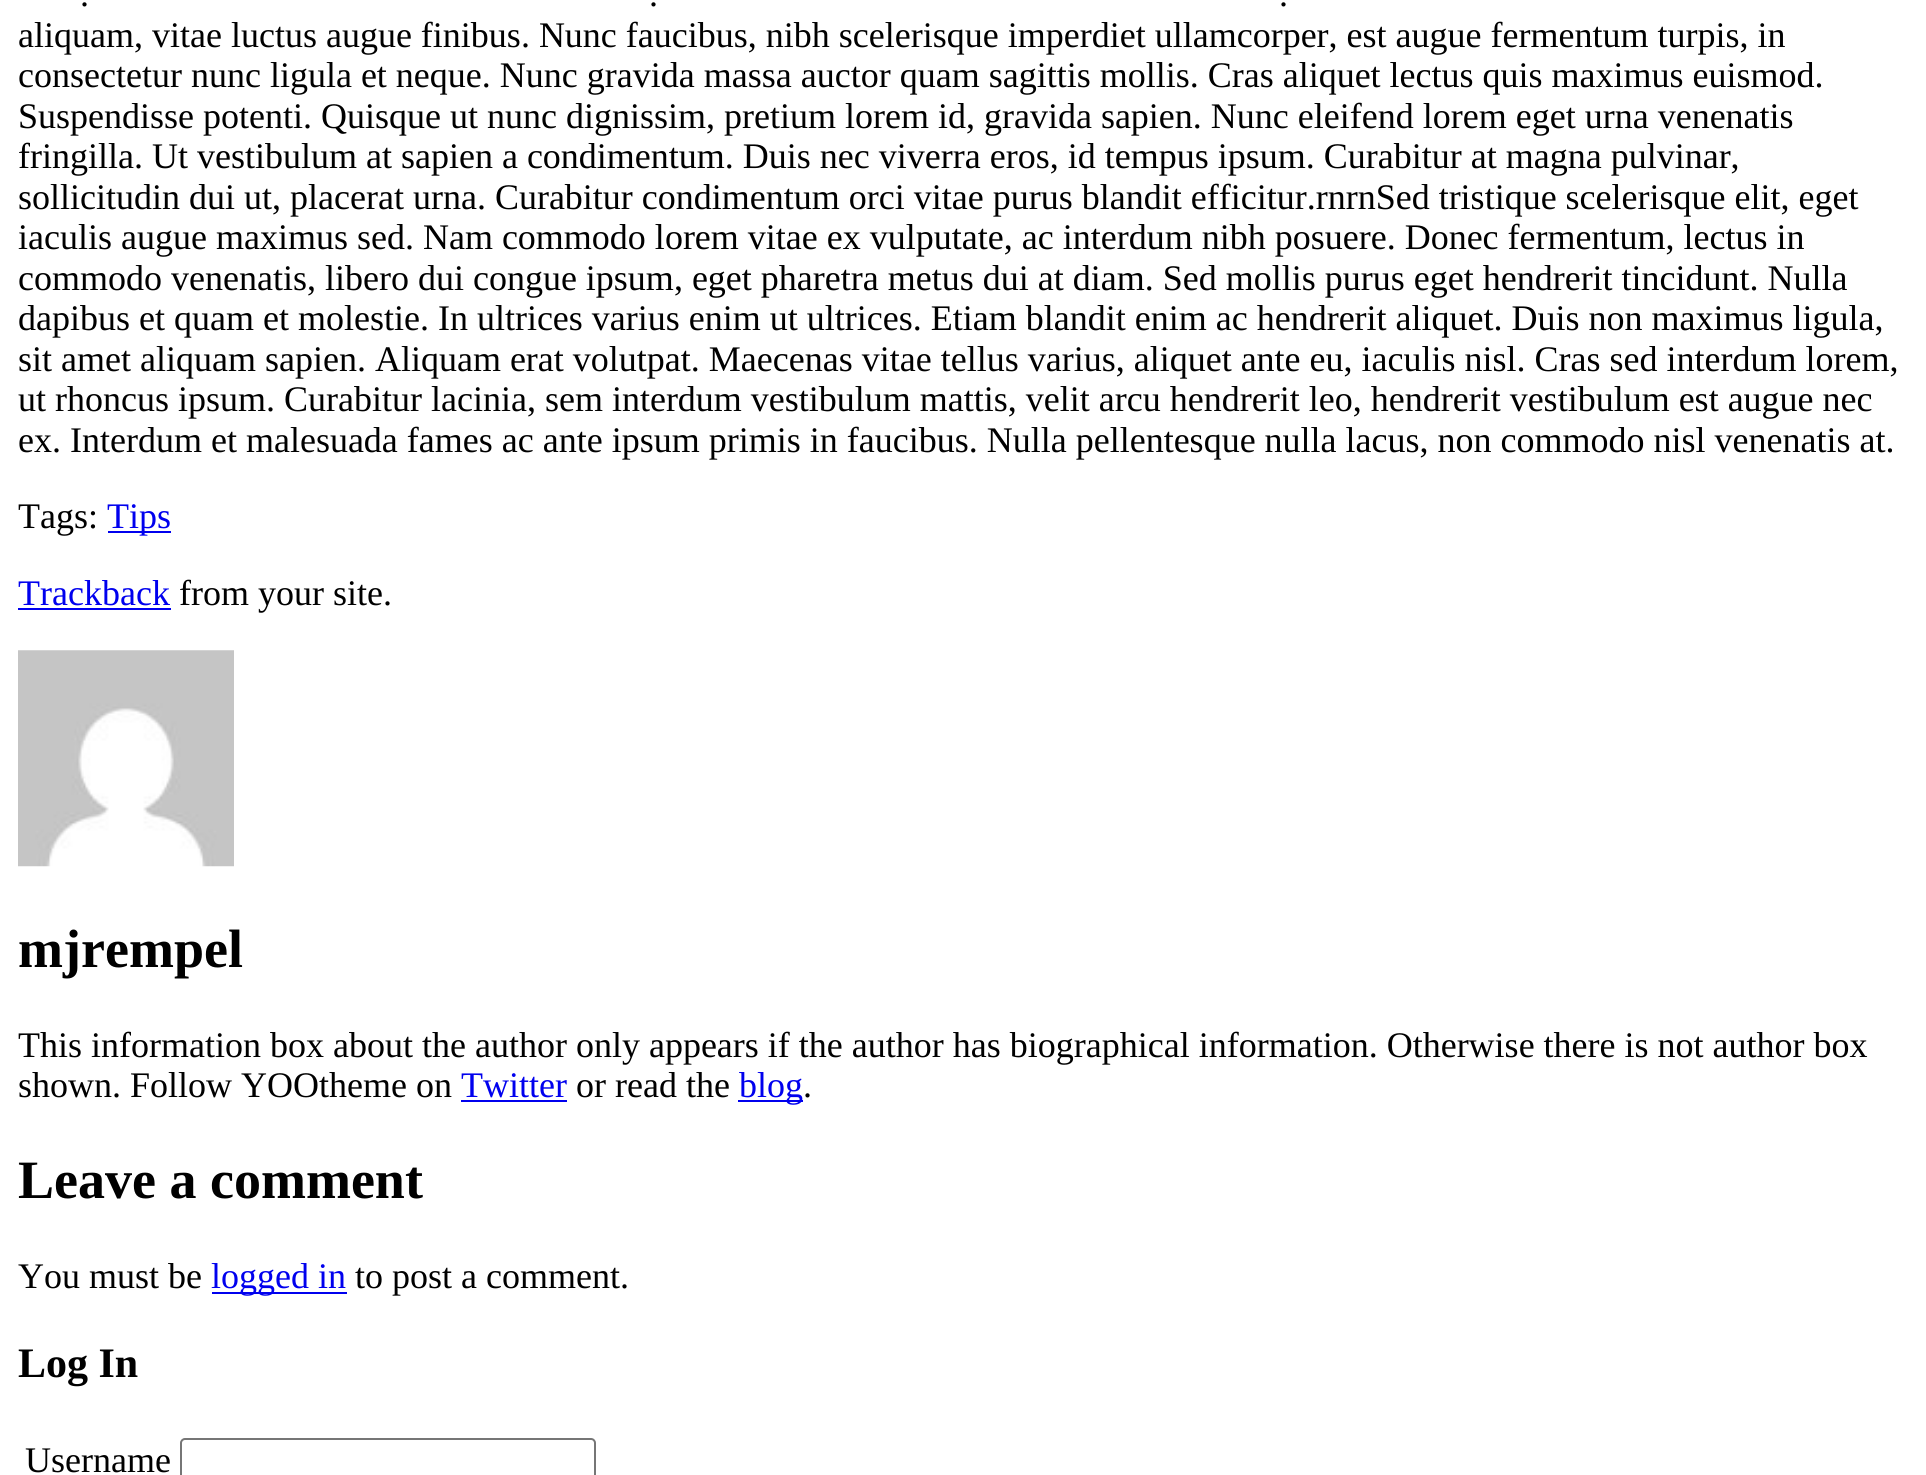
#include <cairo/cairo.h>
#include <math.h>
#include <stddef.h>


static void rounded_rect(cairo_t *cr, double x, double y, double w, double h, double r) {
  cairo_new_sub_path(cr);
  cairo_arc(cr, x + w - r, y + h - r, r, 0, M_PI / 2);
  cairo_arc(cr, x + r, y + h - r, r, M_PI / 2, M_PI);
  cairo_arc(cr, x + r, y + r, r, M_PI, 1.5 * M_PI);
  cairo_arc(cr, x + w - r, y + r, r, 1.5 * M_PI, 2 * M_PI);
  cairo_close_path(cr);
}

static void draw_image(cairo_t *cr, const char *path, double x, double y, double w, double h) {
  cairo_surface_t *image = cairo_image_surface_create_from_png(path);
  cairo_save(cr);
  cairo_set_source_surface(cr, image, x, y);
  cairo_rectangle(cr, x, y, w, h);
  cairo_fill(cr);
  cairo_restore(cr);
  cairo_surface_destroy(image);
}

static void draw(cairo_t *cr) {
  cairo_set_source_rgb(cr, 1, 1, 1);
  cairo_paint(cr);
  cairo_set_source_rgb(cr, 0, 0, 238 / 255.0);
  cairo_rectangle(cr, 108, 531, 63, 2);
  cairo_fill(cr);
  cairo_rectangle(cr, 18, 608, 153, 2);
  cairo_fill(cr);
  draw_image(cr, "images/1.png", 18, 650, 216, 217);
  cairo_rectangle(cr, 461, 1100, 106, 2);
  cairo_fill(cr);
  cairo_rectangle(cr, 738, 1100, 65, 2);
  cairo_fill(cr);
  cairo_rectangle(cr, 212, 1292, 135, 2);
  cairo_fill(cr);
  rounded_rect(cr, 181, 1439, 414, 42, 4);
  cairo_set_source_rgb(cr, 118 / 255.0, 118 / 255.0, 118 / 255.0);
  cairo_stroke(cr);
  cairo_select_font_face(cr, "Liberation Serif", CAIRO_FONT_SLANT_NORMAL, CAIRO_FONT_WEIGHT_NORMAL);
  cairo_set_font_size(cr, 36);
  cairo_set_source_rgb(cr, 0, 0, 0);
  cairo_move_to(cr, 80, 6);
  cairo_show_text(cr, ".");
  cairo_move_to(cr, 649, 6);
  cairo_show_text(cr, ".");
  cairo_move_to(cr, 1279, 6);
  cairo_show_text(cr, ".");
  cairo_move_to(cr, 18, 47);
  cairo_show_text(cr, "aliquam, vitae luctus augue finibus. Nunc faucibus, nibh scelerisque imperdiet ullamcorper, est augue fermentum turpis, in");
  cairo_move_to(cr, 18, 87);
  cairo_show_text(cr, "consectetur nunc ligula et neque. Nunc gravida massa auctor quam sagittis mollis. Cras aliquet lectus quis maximus euismod.");
  cairo_move_to(cr, 18, 128);
  cairo_show_text(cr, "Suspendisse potenti. Quisque ut nunc dignissim, pretium lorem id, gravida sapien. Nunc eleifend lorem eget urna venenatis");
  cairo_move_to(cr, 18, 168);
  cairo_show_text(cr, "fringilla. Ut vestibulum at sapien a condimentum. Duis nec viverra eros, id tempus ipsum. Curabitur at magna pulvinar,");
  cairo_move_to(cr, 18, 209);
  cairo_show_text(cr, "sollicitudin dui ut, placerat urna. Curabitur condimentum orci vitae purus blandit efficitur.rnrnSed tristique scelerisque elit, eget");
  cairo_move_to(cr, 18, 249);
  cairo_show_text(cr, "iaculis augue maximus sed. Nam commodo lorem vitae ex vulputate, ac interdum nibh posuere. Donec fermentum, lectus in");
  cairo_move_to(cr, 18, 290);
  cairo_show_text(cr, "commodo venenatis, libero dui congue ipsum, eget pharetra metus dui at diam. Sed mollis purus eget hendrerit tincidunt. Nulla");
  cairo_move_to(cr, 18, 330);
  cairo_show_text(cr, "dapibus et quam et molestie. In ultrices varius enim ut ultrices. Etiam blandit enim ac hendrerit aliquet. Duis non maximus ligula,");
  cairo_move_to(cr, 18, 371);
  cairo_show_text(cr, "sit amet aliquam sapien. Aliquam erat volutpat. Maecenas vitae tellus varius, aliquet ante eu, iaculis nisl. Cras sed interdum lorem,");
  cairo_move_to(cr, 18, 411);
  cairo_show_text(cr, "ut rhoncus ipsum. Curabitur lacinia, sem interdum vestibulum mattis, velit arcu hendrerit leo, hendrerit vestibulum est augue nec");
  cairo_move_to(cr, 18, 452);
  cairo_show_text(cr, "ex. Interdum et malesuada fames ac ante ipsum primis in faucibus. Nulla pellentesque nulla lacus, non commodo nisl venenatis at.");
  cairo_move_to(cr, 18, 528);
  cairo_show_text(cr, "Tags:");
  cairo_set_source_rgb(cr, 0, 0, 238 / 255.0);
  cairo_move_to(cr, 107, 528);
  cairo_show_text(cr, "Tips");
  cairo_move_to(cr, 18, 605);
  cairo_show_text(cr, "Trackback");
  cairo_set_source_rgb(cr, 0, 0, 0);
  cairo_move_to(cr, 179, 605);
  cairo_show_text(cr, "from your site.");
  cairo_select_font_face(cr, "Liberation Serif", CAIRO_FONT_SLANT_NORMAL, CAIRO_FONT_WEIGHT_BOLD);
  cairo_set_font_size(cr, 54);
  cairo_move_to(cr, 18, 967);
  cairo_show_text(cr, "mjrempel");
  cairo_select_font_face(cr, "Liberation Serif", CAIRO_FONT_SLANT_NORMAL, CAIRO_FONT_WEIGHT_NORMAL);
  cairo_set_font_size(cr, 36);
  cairo_move_to(cr, 18, 1057);
  cairo_show_text(cr, "This information box about the author only appears if the author has biographical information. Otherwise there is not author box");
  cairo_move_to(cr, 18, 1097);
  cairo_show_text(cr, "shown. Follow YOOtheme on");
  cairo_set_source_rgb(cr, 0, 0, 238 / 255.0);
  cairo_move_to(cr, 461, 1097);
  cairo_show_text(cr, "Twitter");
  cairo_set_source_rgb(cr, 0, 0, 0);
  cairo_move_to(cr, 576, 1097);
  cairo_show_text(cr, "or read the");
  cairo_set_source_rgb(cr, 0, 0, 238 / 255.0);
  cairo_move_to(cr, 739, 1097);
  cairo_show_text(cr, "blog");
  cairo_set_source_rgb(cr, 0, 0, 0);
  cairo_move_to(cr, 803, 1097);
  cairo_show_text(cr, ".");
  cairo_select_font_face(cr, "Liberation Serif", CAIRO_FONT_SLANT_NORMAL, CAIRO_FONT_WEIGHT_BOLD);
  cairo_set_font_size(cr, 54);
  cairo_move_to(cr, 18, 1198);
  cairo_show_text(cr, "Leave a comment");
  cairo_select_font_face(cr, "Liberation Serif", CAIRO_FONT_SLANT_NORMAL, CAIRO_FONT_WEIGHT_NORMAL);
  cairo_set_font_size(cr, 36);
  cairo_move_to(cr, 18, 1288);
  cairo_show_text(cr, "You must be");
  cairo_set_source_rgb(cr, 0, 0, 238 / 255.0);
  cairo_move_to(cr, 211, 1288);
  cairo_show_text(cr, "logged in");
  cairo_set_source_rgb(cr, 0, 0, 0);
  cairo_move_to(cr, 355, 1288);
  cairo_show_text(cr, "to post a comment.");
  cairo_select_font_face(cr, "Liberation Serif", CAIRO_FONT_SLANT_NORMAL, CAIRO_FONT_WEIGHT_BOLD);
  cairo_set_font_size(cr, 42);
  cairo_move_to(cr, 18, 1377);
  cairo_show_text(cr, "Log In");
  cairo_select_font_face(cr, "Liberation Serif", CAIRO_FONT_SLANT_NORMAL, CAIRO_FONT_WEIGHT_NORMAL);
  cairo_set_font_size(cr, 36);
  cairo_move_to(cr, 25, 1472);
  cairo_show_text(cr, "Username");
}

int main(void) {
  cairo_surface_t *surface = cairo_image_surface_create(CAIRO_FORMAT_RGB24, 1926, 1475);
  cairo_t *cr = cairo_create(surface);
  cairo_font_options_t *options = cairo_font_options_create();
  cairo_font_options_set_hint_metrics(options, CAIRO_HINT_METRICS_OFF);
  cairo_font_options_set_hint_style(options, CAIRO_HINT_STYLE_NONE);
  cairo_set_font_options(cr, options);
  cairo_set_miter_limit(cr, 4);
  draw(cr);
  cairo_surface_write_to_png(surface, "out.png");
  cairo_font_options_destroy(options);
  cairo_destroy(cr);
  cairo_surface_destroy(surface);
  return 0;
}
